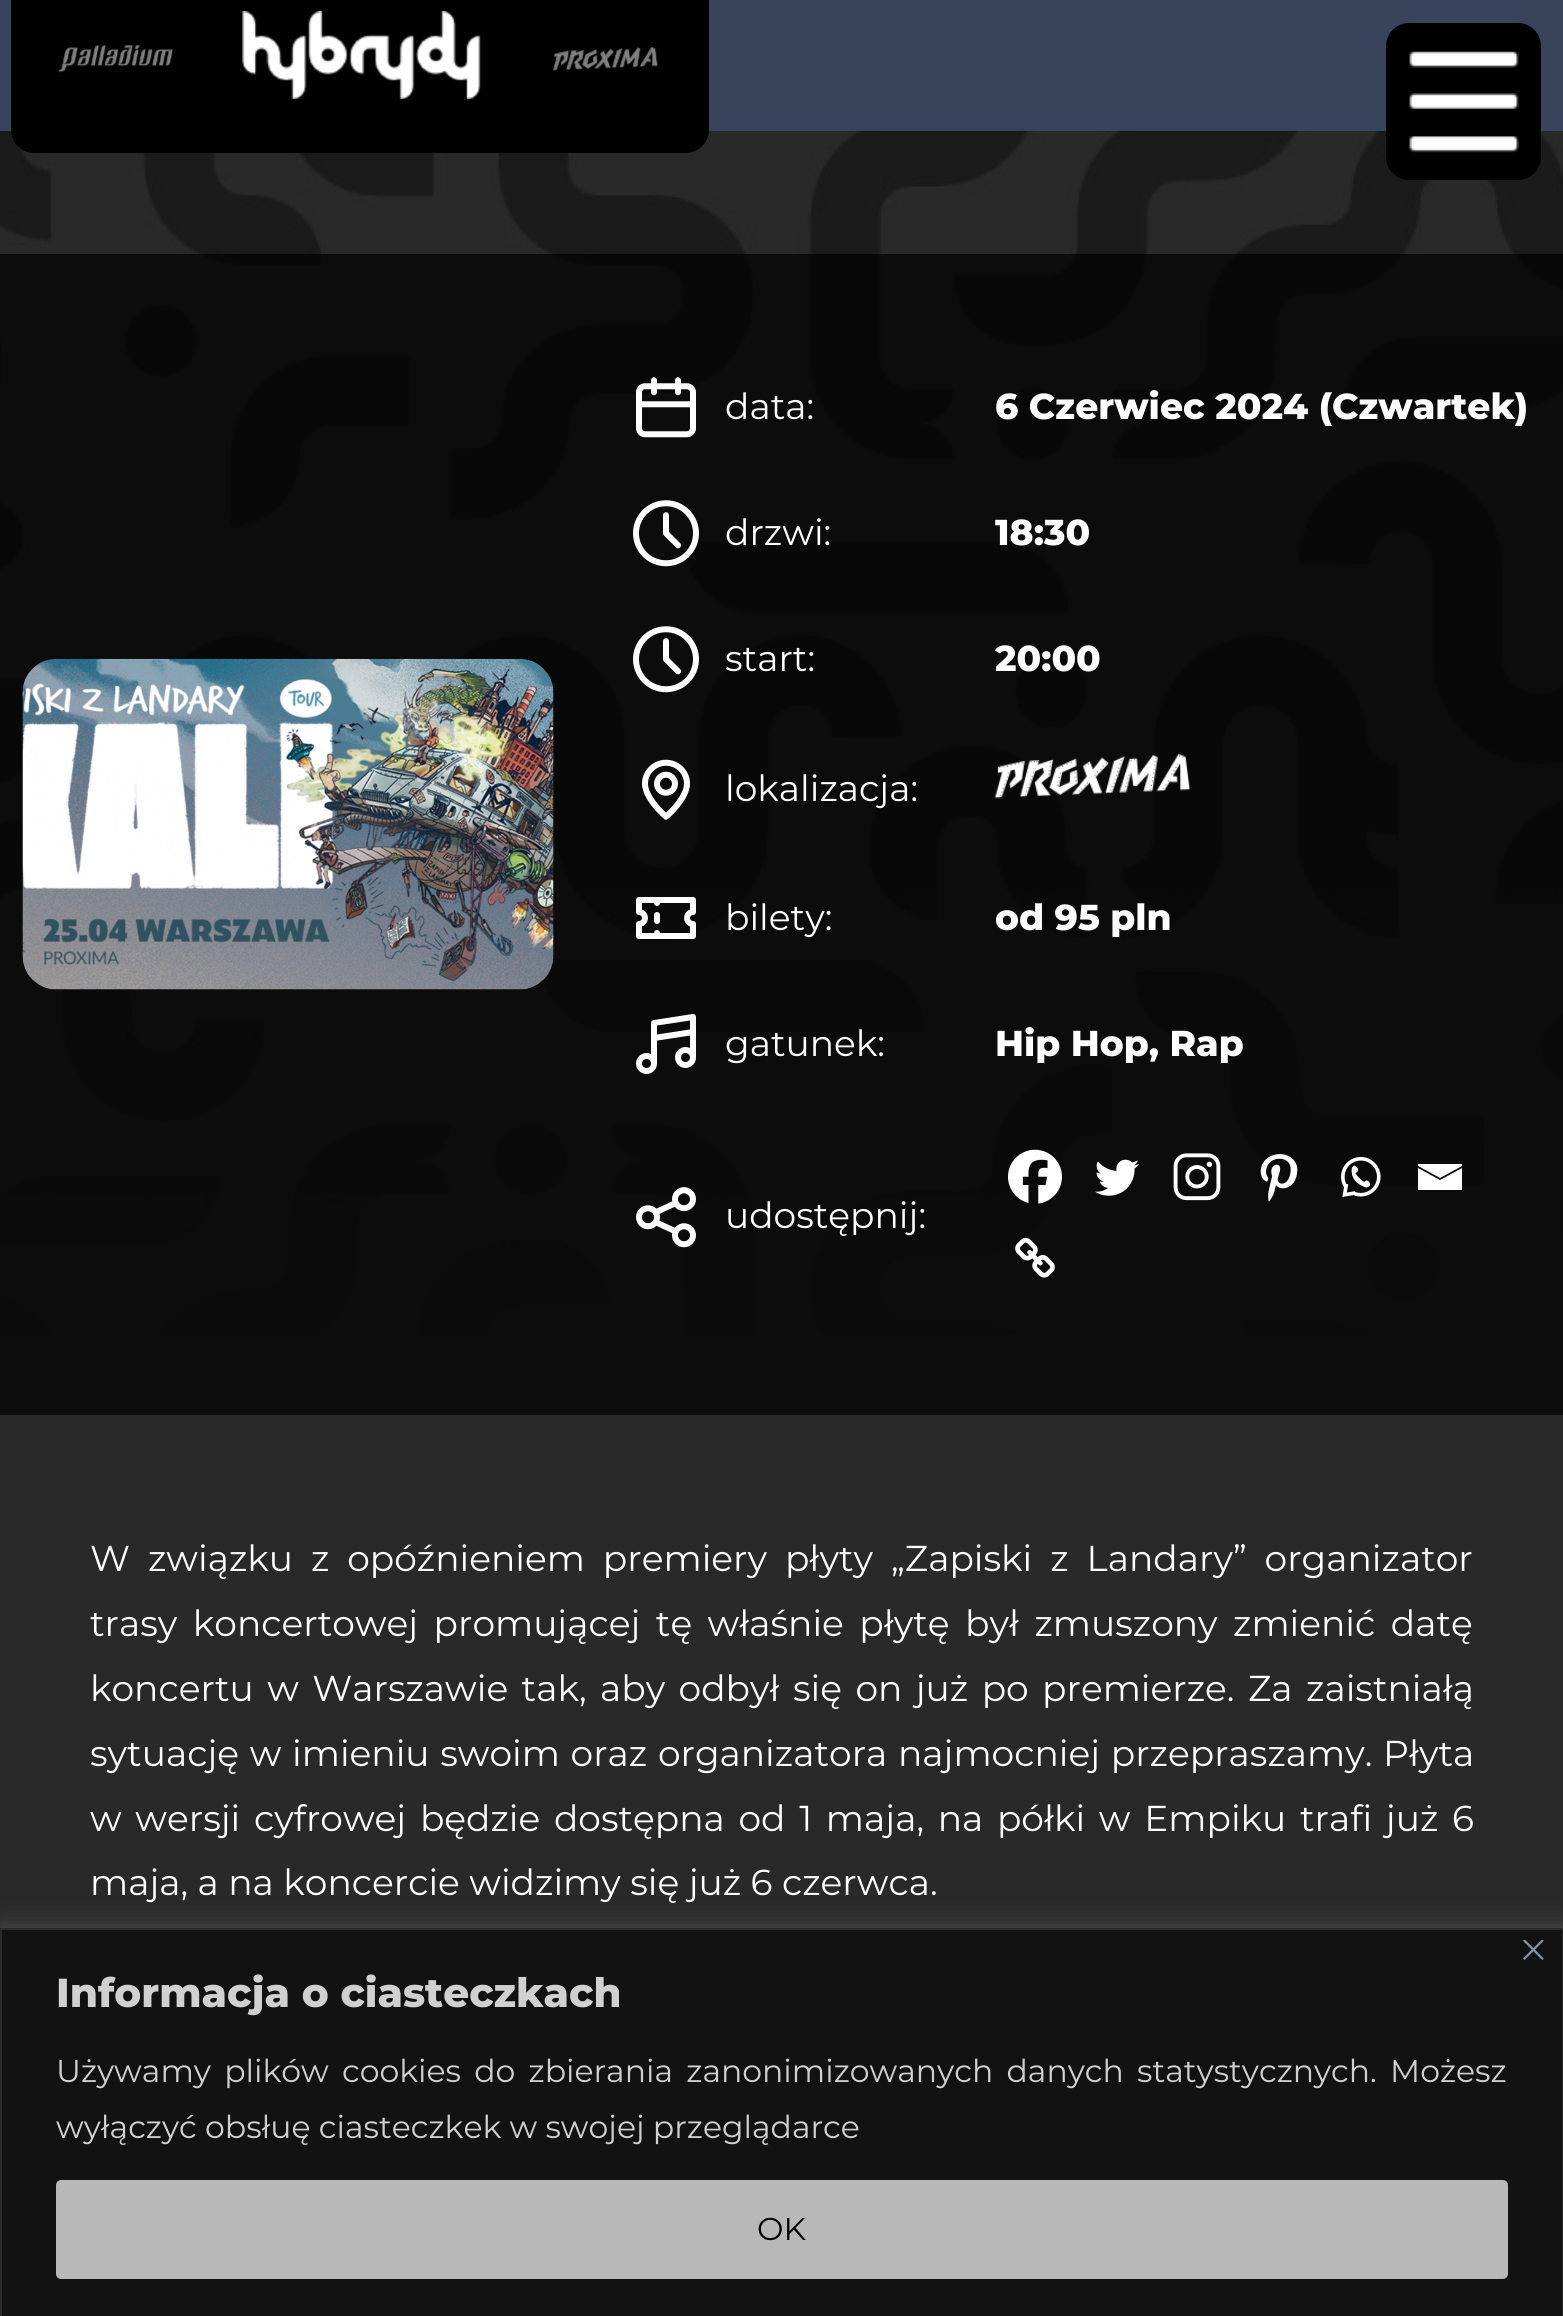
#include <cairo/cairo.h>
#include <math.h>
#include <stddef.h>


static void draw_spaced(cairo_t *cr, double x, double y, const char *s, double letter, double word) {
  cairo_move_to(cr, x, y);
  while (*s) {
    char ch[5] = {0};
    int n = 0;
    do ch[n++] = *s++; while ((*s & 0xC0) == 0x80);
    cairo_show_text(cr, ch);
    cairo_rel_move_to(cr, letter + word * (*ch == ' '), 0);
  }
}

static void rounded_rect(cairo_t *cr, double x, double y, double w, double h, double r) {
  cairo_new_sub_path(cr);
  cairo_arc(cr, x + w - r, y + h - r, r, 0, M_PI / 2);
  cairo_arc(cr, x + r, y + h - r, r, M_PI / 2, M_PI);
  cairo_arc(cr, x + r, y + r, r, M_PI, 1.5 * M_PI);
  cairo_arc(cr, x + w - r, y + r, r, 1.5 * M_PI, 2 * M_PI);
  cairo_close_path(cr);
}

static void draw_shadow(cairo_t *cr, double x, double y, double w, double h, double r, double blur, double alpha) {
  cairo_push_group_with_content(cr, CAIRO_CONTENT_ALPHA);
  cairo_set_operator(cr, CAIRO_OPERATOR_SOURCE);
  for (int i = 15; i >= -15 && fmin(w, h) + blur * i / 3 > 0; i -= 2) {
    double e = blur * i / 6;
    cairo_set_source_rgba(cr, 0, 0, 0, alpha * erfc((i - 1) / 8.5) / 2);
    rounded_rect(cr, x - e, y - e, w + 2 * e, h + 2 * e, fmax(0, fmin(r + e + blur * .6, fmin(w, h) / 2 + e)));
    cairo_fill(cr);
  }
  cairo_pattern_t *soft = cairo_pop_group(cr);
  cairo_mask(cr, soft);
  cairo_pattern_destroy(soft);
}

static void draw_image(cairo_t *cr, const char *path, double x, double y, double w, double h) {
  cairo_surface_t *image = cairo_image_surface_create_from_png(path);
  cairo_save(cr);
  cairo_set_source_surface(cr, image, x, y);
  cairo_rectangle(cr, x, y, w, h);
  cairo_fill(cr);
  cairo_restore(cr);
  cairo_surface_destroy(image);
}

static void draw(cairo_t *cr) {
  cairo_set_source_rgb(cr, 41 / 255.0, 41 / 255.0, 41 / 255.0);
  cairo_paint(cr);
  draw_image(cr, "images/1.png", 0, 131, 1563, 1204);
  cairo_set_source_rgb(cr, 56 / 255.0, 67 / 255.0, 92 / 255.0);
  cairo_rectangle(cr, 0, 0, 1563, 131);
  cairo_fill(cr);
  cairo_set_source_rgb(cr, 0, 0, 0);
  cairo_new_path(cr);
  cairo_move_to(cr, 11, 0);
  cairo_line_to(cr, 709, 0);
  cairo_line_to(cr, 709, 130);
  cairo_curve_to(cr, 709, 142.5, 698.5, 153, 686, 153);
  cairo_line_to(cr, 34, 153);
  cairo_curve_to(cr, 21.5, 153, 11, 142.5, 11, 130);
  cairo_close_path(cr);
  cairo_fill(cr);
  draw_image(cr, "images/2.png", 58, 45, 115, 28);
  draw_image(cr, "images/3.png", 241, 11, 240, 88);
  draw_image(cr, "images/4.png", 553, 47, 105, 24);
  rounded_rect(cr, 1386, 23, 155, 157, 23);
  cairo_fill(cr);
  draw_image(cr, "images/5.png", 1409, 51, 110, 102);
  cairo_set_source_rgba(cr, 0, 0, 0, 0.7);
  cairo_rectangle(cr, 0, 254, 1563, 1161);
  cairo_fill(cr);
  draw_image(cr, "images/6.png", 22, 658, 532, 332);
  draw_image(cr, "images/7.png", 636, 377, 60, 61);
  draw_image(cr, "images/8.png", 633, 500, 66, 67);
  draw_image(cr, "images/9.png", 633, 626, 66, 67);
  draw_image(cr, "images/10.png", 642, 759, 48, 61);
  draw_image(cr, "images/11.png", 994, 753, 197, 46);
  draw_image(cr, "images/12.png", 636, 897, 60, 42);
  draw_image(cr, "images/13.png", 636, 1014, 60, 60);
  draw_image(cr, "images/14.png", 636, 1187, 60, 61);
  draw_image(cr, "images/15.png", 1008, 1149, 54, 55);
  draw_image(cr, "images/16.png", 1095, 1159, 44, 37);
  draw_image(cr, "images/17.png", 1173, 1153, 48, 48);
  draw_image(cr, "images/18.png", 1260, 1154, 38, 48);
  draw_image(cr, "images/19.png", 1341, 1157, 40, 40);
  cairo_set_source_rgb(cr, 1, 1, 1);
  cairo_new_path(cr);
  cairo_move_to(cr, 1416, 1164);
  cairo_line_to(cr, 1462, 1164);
  cairo_line_to(cr, 1462, 1166);
  cairo_line_to(cr, 1440, 1178);
  cairo_line_to(cr, 1418, 1166);
  cairo_line_to(cr, 1418, 1164);
  cairo_move_to(cr, 1418, 1168);
  cairo_line_to(cr, 1440, 1180);
  cairo_line_to(cr, 1462, 1168);
  cairo_line_to(cr, 1462, 1190);
  cairo_line_to(cr, 1418, 1190);
  cairo_line_to(cr, 1418, 1168);
  cairo_fill(cr);
  draw_image(cr, "images/20.png", 1015, 1237, 40, 41);
  cairo_set_source_rgb(cr, 172 / 255.0, 171 / 255.0, 171 / 255.0);
  draw_shadow(cr, 0, 1926, 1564, 389, 0, 11, 0.3);
  cairo_set_source_rgb(cr, 18 / 255.0, 18 / 255.0, 18 / 255.0);
  cairo_rectangle(cr, 1, 1929, 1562, 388);
  cairo_fill_preserve(cr);
  cairo_set_source_rgb(cr, 42 / 255.0, 42 / 255.0, 42 / 255.0);
  cairo_stroke(cr);
  draw_image(cr, "images/21.png", 1523, 1940, 21, 20);
  cairo_set_source_rgb(cr, 184 / 255.0, 184 / 255.0, 184 / 255.0);
  rounded_rect(cr, 58.5, 2182.5, 1447, 94, 2.5);
  cairo_fill_preserve(cr);
  cairo_set_line_width(cr, 5);
  cairo_stroke(cr);
  cairo_select_font_face(cr, "Montserrat", CAIRO_FONT_SLANT_NORMAL, CAIRO_FONT_WEIGHT_NORMAL);
  cairo_set_font_size(cr, 36);
  cairo_set_source_rgb(cr, 1, 1, 1);
  cairo_move_to(cr, 725, 419);
  cairo_show_text(cr, "data:");
  cairo_select_font_face(cr, "Montserrat ExtraBold", CAIRO_FONT_SLANT_NORMAL, CAIRO_FONT_WEIGHT_NORMAL);
  cairo_move_to(cr, 995, 419);
  cairo_show_text(cr, "6 Czerwiec 2024 (Czwartek)");
  cairo_select_font_face(cr, "Montserrat", CAIRO_FONT_SLANT_NORMAL, CAIRO_FONT_WEIGHT_NORMAL);
  cairo_move_to(cr, 725, 545);
  cairo_show_text(cr, "drzwi:");
  cairo_select_font_face(cr, "Montserrat ExtraBold", CAIRO_FONT_SLANT_NORMAL, CAIRO_FONT_WEIGHT_NORMAL);
  cairo_move_to(cr, 995, 545);
  cairo_show_text(cr, "18:30");
  cairo_select_font_face(cr, "Montserrat", CAIRO_FONT_SLANT_NORMAL, CAIRO_FONT_WEIGHT_NORMAL);
  cairo_move_to(cr, 725, 671);
  cairo_show_text(cr, "start:");
  cairo_select_font_face(cr, "Montserrat ExtraBold", CAIRO_FONT_SLANT_NORMAL, CAIRO_FONT_WEIGHT_NORMAL);
  cairo_move_to(cr, 995, 671);
  cairo_show_text(cr, "20:00");
  cairo_select_font_face(cr, "Montserrat", CAIRO_FONT_SLANT_NORMAL, CAIRO_FONT_WEIGHT_NORMAL);
  cairo_move_to(cr, 725, 801);
  cairo_show_text(cr, "lokalizacja:");
  cairo_move_to(cr, 725, 930);
  cairo_show_text(cr, "bilety:");
  cairo_select_font_face(cr, "Montserrat ExtraBold", CAIRO_FONT_SLANT_NORMAL, CAIRO_FONT_WEIGHT_NORMAL);
  cairo_move_to(cr, 995, 930);
  cairo_show_text(cr, "od 95 pln");
  cairo_select_font_face(cr, "Montserrat", CAIRO_FONT_SLANT_NORMAL, CAIRO_FONT_WEIGHT_NORMAL);
  cairo_move_to(cr, 725, 1056);
  cairo_show_text(cr, "gatunek:");
  cairo_select_font_face(cr, "Montserrat ExtraBold", CAIRO_FONT_SLANT_NORMAL, CAIRO_FONT_WEIGHT_NORMAL);
  cairo_move_to(cr, 995, 1056);
  cairo_show_text(cr, "Hip Hop, Rap");
  cairo_select_font_face(cr, "Montserrat", CAIRO_FONT_SLANT_NORMAL, CAIRO_FONT_WEIGHT_NORMAL);
  cairo_move_to(cr, 725, 1228);
  cairo_show_text(cr, "udostępnij:");
  draw_spaced(cr, 90, 1571, "W związku z opóźnieniem premiery płyty „Zapiski z Landary” organizator", 0, 8.5);
  draw_spaced(cr, 90, 1636, "trasy koncertowej promującej tę właśnie płytę był zmuszony zmienić datę", 0, 6);
  draw_spaced(cr, 90, 1701, "koncertu w Warszawie tak, aby odbył się on już po premierze. Za zaistniałą", 0, 4);
  draw_spaced(cr, 90, 1766, "sytuację w imieniu swoim oraz organizatora najmocniej przepraszamy. Płyta", 0, 1.25);
  draw_spaced(cr, 90, 1831, "w wersji cyfrowej będzie dostępna od 1 maja, na półki w Empiku trafi już 6", 0, 4.25);
  cairo_move_to(cr, 90, 1895);
  cairo_show_text(cr, "maja, a na koncercie widzimy się już 6 czerwca.");
  cairo_select_font_face(cr, "Montserrat ExtraBold", CAIRO_FONT_SLANT_NORMAL, CAIRO_FONT_WEIGHT_NORMAL);
  cairo_set_font_size(cr, 40.5);
  cairo_set_source_rgb(cr, 208 / 255.0, 208 / 255.0, 208 / 255.0);
  cairo_move_to(cr, 56, 2007);
  cairo_show_text(cr, "Informacja o ciasteczkach");
  cairo_select_font_face(cr, "Montserrat", CAIRO_FONT_SLANT_NORMAL, CAIRO_FONT_WEIGHT_NORMAL);
  cairo_set_font_size(cr, 31.5);
  draw_spaced(cr, 56, 2082, "Używamy plików cookies do zbierania zanonimizowanych danych statystycznych. Możesz", 0, 5);
  cairo_move_to(cr, 56, 2138);
  cairo_show_text(cr, "wyłączyć obsłuę ciasteczkek w swojej przeglądarce");
  cairo_set_source_rgb(cr, 0, 0, 0);
  cairo_move_to(cr, 757, 2240);
  cairo_show_text(cr, "OK");
}

int main(void) {
  cairo_surface_t *surface = cairo_image_surface_create(CAIRO_FORMAT_RGB24, 1563, 2316);
  cairo_t *cr = cairo_create(surface);
  cairo_font_options_t *options = cairo_font_options_create();
  cairo_font_options_set_hint_metrics(options, CAIRO_HINT_METRICS_OFF);
  cairo_font_options_set_hint_style(options, CAIRO_HINT_STYLE_NONE);
  cairo_set_font_options(cr, options);
  cairo_set_miter_limit(cr, 4);
  draw(cr);
  cairo_surface_write_to_png(surface, "out.png");
  cairo_font_options_destroy(options);
  cairo_destroy(cr);
  cairo_surface_destroy(surface);
  return 0;
}
